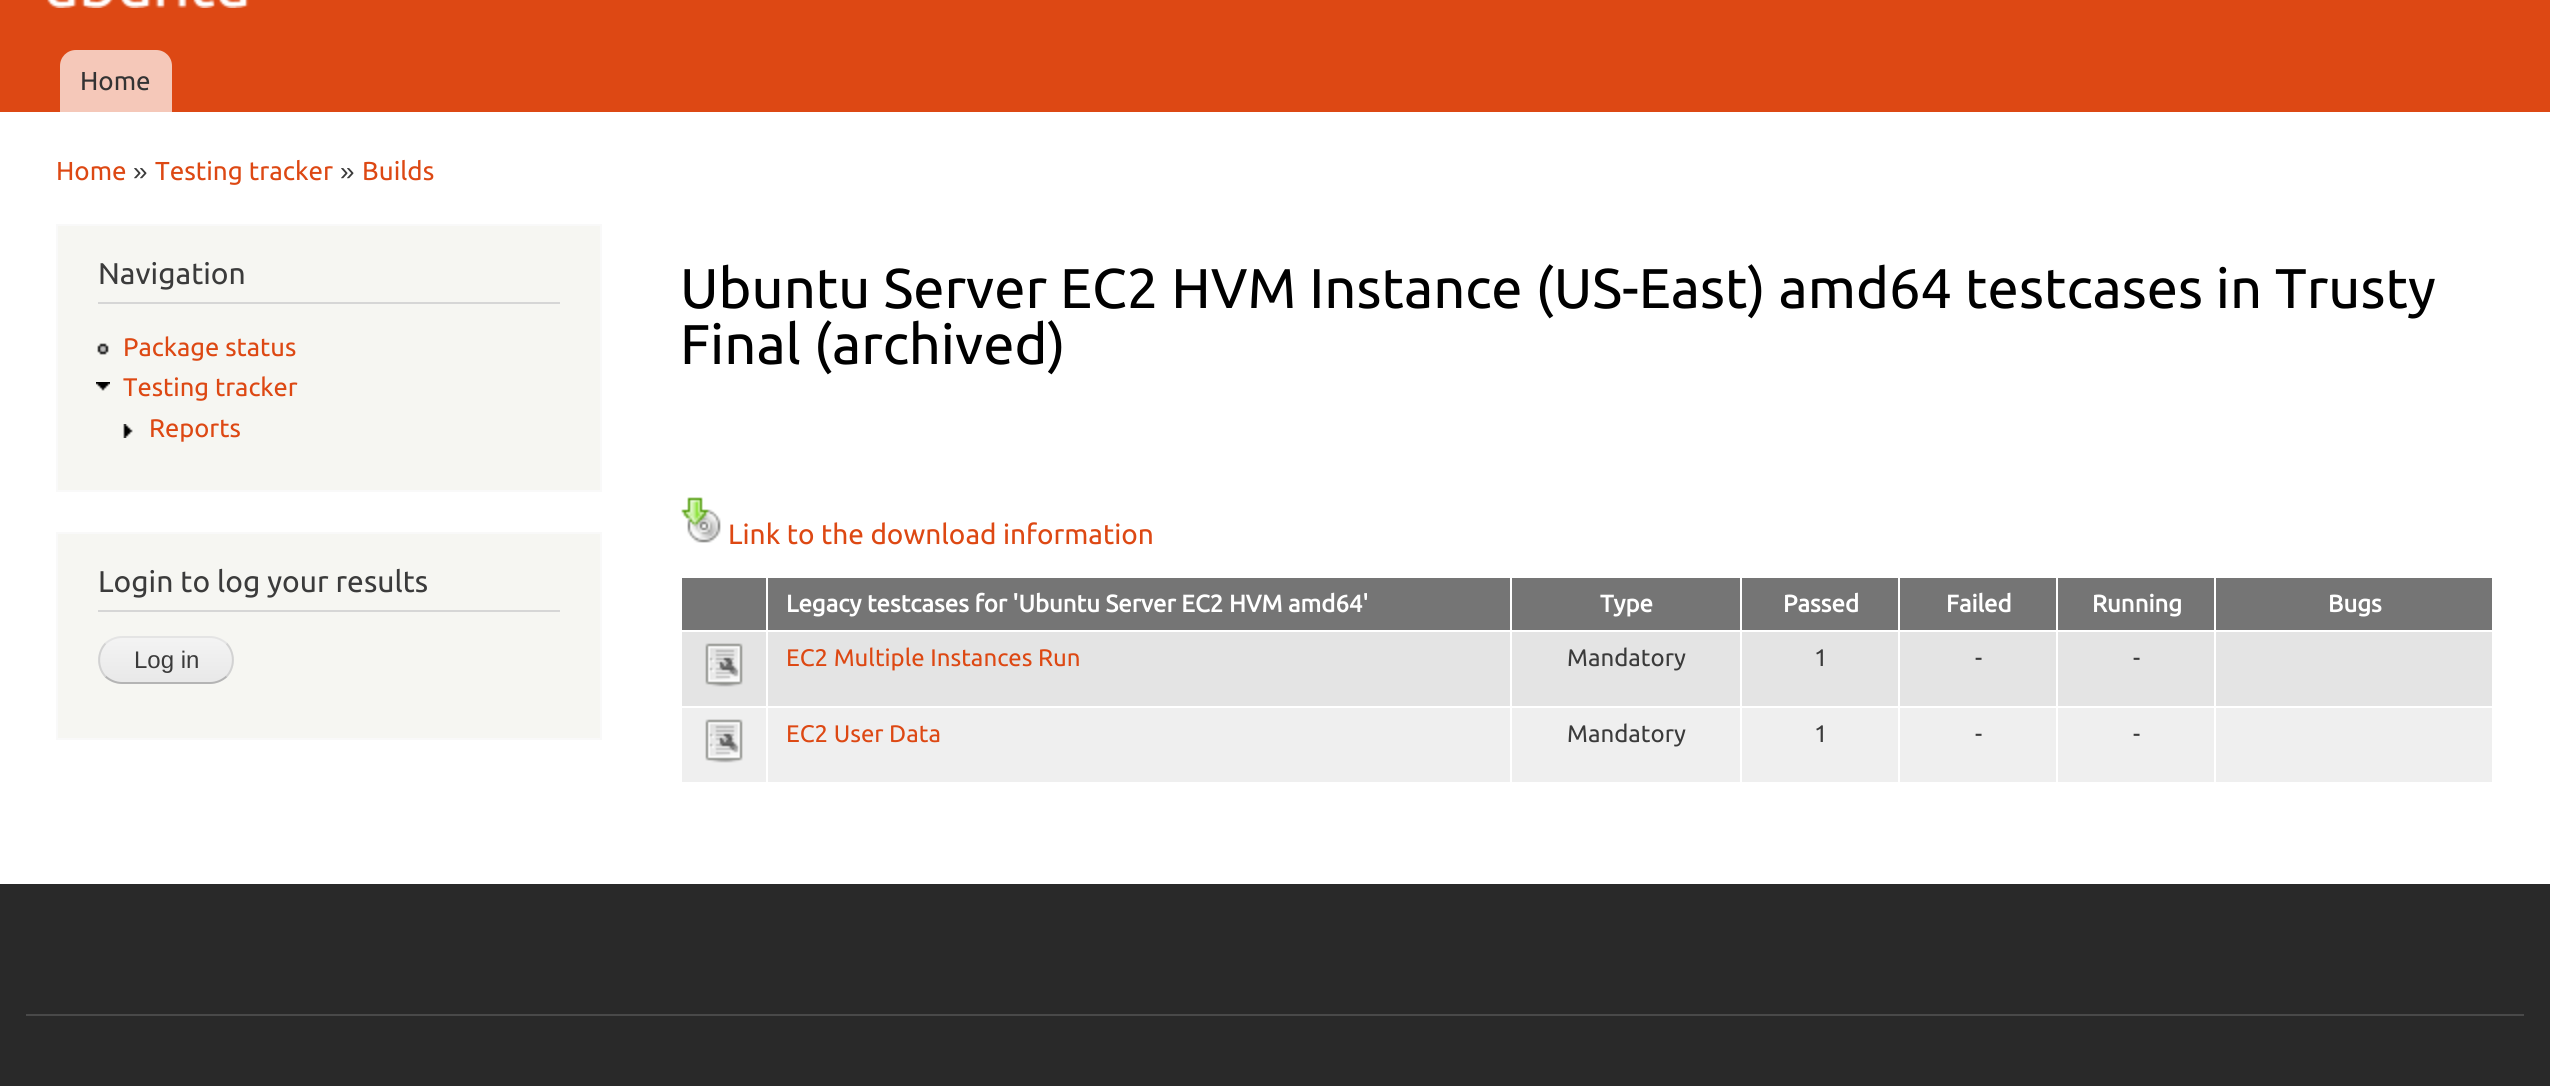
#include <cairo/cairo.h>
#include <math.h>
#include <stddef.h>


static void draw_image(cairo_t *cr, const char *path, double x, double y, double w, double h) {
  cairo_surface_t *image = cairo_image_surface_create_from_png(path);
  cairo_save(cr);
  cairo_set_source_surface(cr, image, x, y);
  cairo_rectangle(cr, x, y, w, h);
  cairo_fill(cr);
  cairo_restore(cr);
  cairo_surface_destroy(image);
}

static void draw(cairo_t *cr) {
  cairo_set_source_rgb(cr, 1, 1, 1);
  cairo_paint(cr);
  cairo_set_source_rgb(cr, 221 / 255.0, 72 / 255.0, 20 / 255.0);
  cairo_rectangle(cr, 0, 0, 2550, 112);
  cairo_fill(cr);
  draw_image(cr, "images/1.png", 47, 0, 202, 8);
  cairo_set_source_rgb(cr, 245 / 255.0, 200 / 255.0, 185 / 255.0);
  cairo_new_path(cr);
  cairo_move_to(cr, 76, 50);
  cairo_line_to(cr, 156, 50);
  cairo_curve_to(cr, 165, 50, 172, 57, 172, 66);
  cairo_line_to(cr, 172, 112);
  cairo_line_to(cr, 60, 112);
  cairo_line_to(cr, 60, 66);
  cairo_curve_to(cr, 60, 57, 67, 50, 76, 50);
  cairo_close_path(cr);
  cairo_fill(cr);
  cairo_set_source_rgb(cr, 246 / 255.0, 246 / 255.0, 242 / 255.0);
  cairo_rectangle(cr, 57, 225, 544, 266);
  cairo_fill_preserve(cr);
  cairo_set_source_rgb(cr, 249 / 255.0, 249 / 255.0, 249 / 255.0);
  cairo_stroke(cr);
  cairo_set_source_rgb(cr, 214 / 255.0, 214 / 255.0, 214 / 255.0);
  cairo_rectangle(cr, 98, 302, 462, 2);
  cairo_fill(cr);
  draw_image(cr, "images/2.png", 97, 343, 12, 12);
  draw_image(cr, "images/3.png", 96, 382, 14, 9);
  draw_image(cr, "images/4.png", 123, 424, 10, 14);
  cairo_set_source_rgb(cr, 246 / 255.0, 246 / 255.0, 242 / 255.0);
  cairo_rectangle(cr, 57, 533, 544, 206);
  cairo_fill_preserve(cr);
  cairo_set_source_rgb(cr, 249 / 255.0, 249 / 255.0, 249 / 255.0);
  cairo_stroke(cr);
  cairo_set_source_rgb(cr, 214 / 255.0, 214 / 255.0, 214 / 255.0);
  cairo_rectangle(cr, 98, 610, 462, 2);
  cairo_fill(cr);
  draw_image(cr, "images/5.png", 98, 638, 136, 46);
  cairo_new_path(cr);
  cairo_move_to(cr, 105.5, 643.5);
  cairo_curve_to(cr, 110, 639.5, 116, 637, 122, 637);
  cairo_line_to(cr, 210, 637);
  cairo_curve_to(cr, 216, 637, 222, 639.5, 226.5, 643.5);
  cairo_set_source_rgb(cr, 228 / 255.0, 228 / 255.0, 228 / 255.0);
  cairo_stroke(cr);
  cairo_new_path(cr);
  cairo_move_to(cr, 226.5, 643.5);
  cairo_curve_to(cr, 235, 652.5, 235, 667.5, 226.5, 676.5);
  cairo_set_source_rgb(cr, 210 / 255.0, 210 / 255.0, 210 / 255.0);
  cairo_stroke(cr);
  cairo_new_path(cr);
  cairo_move_to(cr, 226.5, 676.5);
  cairo_curve_to(cr, 222, 680.5, 216, 683, 210, 683);
  cairo_line_to(cr, 122, 683);
  cairo_curve_to(cr, 116, 683, 110, 680.5, 105.5, 676.5);
  cairo_set_source_rgb(cr, 180 / 255.0, 180 / 255.0, 180 / 255.0);
  cairo_stroke(cr);
  cairo_new_path(cr);
  cairo_move_to(cr, 105.5, 676.5);
  cairo_curve_to(cr, 97, 667.5, 97, 652.5, 105.5, 643.5);
  cairo_set_source_rgb(cr, 210 / 255.0, 210 / 255.0, 210 / 255.0);
  cairo_stroke(cr);
  draw_image(cr, "images/6.png", 681, 497, 40, 46);
  cairo_set_source_rgb(cr, 117 / 255.0, 117 / 255.0, 117 / 255.0);
  cairo_rectangle(cr, 682, 578, 84, 52);
  cairo_fill(cr);
  cairo_rectangle(cr, 768, 578, 742, 52);
  cairo_fill(cr);
  cairo_rectangle(cr, 1512, 578, 228, 52);
  cairo_fill(cr);
  cairo_rectangle(cr, 1742, 578, 156, 52);
  cairo_fill(cr);
  cairo_rectangle(cr, 1900, 578, 156, 52);
  cairo_fill(cr);
  cairo_rectangle(cr, 2058, 578, 156, 52);
  cairo_fill(cr);
  cairo_rectangle(cr, 2216, 578, 276, 52);
  cairo_fill(cr);
  cairo_set_source_rgb(cr, 228 / 255.0, 228 / 255.0, 228 / 255.0);
  cairo_rectangle(cr, 682, 632, 1810, 74);
  cairo_fill(cr);
  draw_image(cr, "images/7.png", 705, 643, 38, 44);
  cairo_set_source_rgb(cr, 239 / 255.0, 239 / 255.0, 239 / 255.0);
  cairo_rectangle(cr, 682, 708, 1810, 74);
  cairo_fill(cr);
  draw_image(cr, "images/8.png", 705, 719, 38, 44);
  cairo_set_source_rgb(cr, 1, 1, 1);
  cairo_rectangle(cr, 766, 630, 2, 154);
  cairo_fill(cr);
  cairo_rectangle(cr, 1510, 630, 2, 154);
  cairo_fill(cr);
  cairo_rectangle(cr, 1740, 630, 2, 154);
  cairo_fill(cr);
  cairo_rectangle(cr, 1898, 630, 2, 154);
  cairo_fill(cr);
  cairo_rectangle(cr, 2056, 630, 2, 154);
  cairo_fill(cr);
  cairo_rectangle(cr, 2214, 630, 2, 154);
  cairo_fill(cr);
  cairo_set_source_rgb(cr, 41 / 255.0, 41 / 255.0, 41 / 255.0);
  cairo_rectangle(cr, 0, 884, 2550, 202);
  cairo_fill(cr);
  cairo_set_source_rgb(cr, 73 / 255.0, 73 / 255.0, 73 / 255.0);
  cairo_rectangle(cr, 26, 1014, 2498, 2);
  cairo_fill(cr);
  cairo_select_font_face(cr, "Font", CAIRO_FONT_SLANT_NORMAL, CAIRO_FONT_WEIGHT_NORMAL);
  cairo_set_font_size(cr, 26);
  cairo_set_source_rgb(cr, 51 / 255.0, 51 / 255.0, 51 / 255.0);
  cairo_move_to(cr, 80, 90);
  cairo_show_text(cr, "Home");
  cairo_set_source_rgb(cr, 221 / 255.0, 72 / 255.0, 19 / 255.0);
  cairo_move_to(cr, 56, 180);
  cairo_show_text(cr, "Home");
  cairo_select_font_face(cr, "Liberation Sans", CAIRO_FONT_SLANT_NORMAL, CAIRO_FONT_WEIGHT_NORMAL);
  cairo_set_source_rgb(cr, 59 / 255.0, 59 / 255.0, 59 / 255.0);
  cairo_move_to(cr, 133, 180);
  cairo_show_text(cr, "»");
  cairo_select_font_face(cr, "Font", CAIRO_FONT_SLANT_NORMAL, CAIRO_FONT_WEIGHT_NORMAL);
  cairo_set_source_rgb(cr, 221 / 255.0, 72 / 255.0, 19 / 255.0);
  cairo_move_to(cr, 155, 180);
  cairo_show_text(cr, "Testing tracker");
  cairo_select_font_face(cr, "Liberation Sans", CAIRO_FONT_SLANT_NORMAL, CAIRO_FONT_WEIGHT_NORMAL);
  cairo_set_source_rgb(cr, 59 / 255.0, 59 / 255.0, 59 / 255.0);
  cairo_move_to(cr, 340, 180);
  cairo_show_text(cr, "»");
  cairo_select_font_face(cr, "Font", CAIRO_FONT_SLANT_NORMAL, CAIRO_FONT_WEIGHT_NORMAL);
  cairo_set_source_rgb(cr, 221 / 255.0, 72 / 255.0, 19 / 255.0);
  cairo_move_to(cr, 362, 180);
  cairo_show_text(cr, "Builds");
  cairo_set_font_size(cr, 30);
  cairo_set_source_rgb(cr, 59 / 255.0, 59 / 255.0, 59 / 255.0);
  cairo_move_to(cr, 98, 284);
  cairo_show_text(cr, "Navigation");
  cairo_set_font_size(cr, 25.5);
  cairo_set_source_rgb(cr, 221 / 255.0, 72 / 255.0, 19 / 255.0);
  cairo_move_to(cr, 123, 356);
  cairo_show_text(cr, "Package status");
  cairo_move_to(cr, 123, 396);
  cairo_show_text(cr, "Testing tracker");
  cairo_move_to(cr, 149, 437);
  cairo_show_text(cr, "Reports");
  cairo_set_font_size(cr, 30);
  cairo_set_source_rgb(cr, 59 / 255.0, 59 / 255.0, 59 / 255.0);
  cairo_move_to(cr, 98, 592);
  cairo_show_text(cr, "Login to log your results");
  cairo_select_font_face(cr, "Liberation Sans", CAIRO_FONT_SLANT_NORMAL, CAIRO_FONT_WEIGHT_NORMAL);
  cairo_set_font_size(cr, 24);
  cairo_move_to(cr, 134, 668);
  cairo_show_text(cr, "Log in");
  cairo_select_font_face(cr, "Font", CAIRO_FONT_SLANT_NORMAL, CAIRO_FONT_WEIGHT_NORMAL);
  cairo_set_font_size(cr, 56);
  cairo_set_source_rgb(cr, 0, 0, 0);
  cairo_move_to(cr, 680, 308);
  cairo_show_text(cr, "Ubuntu Server EC2 HVM Instance (US-East) amd64 testcases in Trusty");
  cairo_move_to(cr, 680, 364);
  cairo_show_text(cr, "Final (archived)");
  cairo_set_font_size(cr, 28);
  cairo_set_source_rgb(cr, 221 / 255.0, 72 / 255.0, 19 / 255.0);
  cairo_move_to(cr, 728, 544);
  cairo_show_text(cr, "Link to the download information");
  cairo_select_font_face(cr, "Font", CAIRO_FONT_SLANT_NORMAL, CAIRO_FONT_WEIGHT_BOLD);
  cairo_set_font_size(cr, 24);
  cairo_set_source_rgb(cr, 1, 1, 1);
  cairo_move_to(cr, 786, 612);
  cairo_show_text(cr, "Legacy testcases for 'Ubuntu Server EC2 HVM amd64'");
  cairo_move_to(cr, 1600, 612);
  cairo_show_text(cr, "Type");
  cairo_move_to(cr, 1783, 612);
  cairo_show_text(cr, "Passed");
  cairo_move_to(cr, 1946, 612);
  cairo_show_text(cr, "Failed");
  cairo_move_to(cr, 2092, 612);
  cairo_show_text(cr, "Running");
  cairo_move_to(cr, 2328, 612);
  cairo_show_text(cr, "Bugs");
  cairo_select_font_face(cr, "Font", CAIRO_FONT_SLANT_NORMAL, CAIRO_FONT_WEIGHT_NORMAL);
  cairo_set_source_rgb(cr, 221 / 255.0, 72 / 255.0, 19 / 255.0);
  cairo_move_to(cr, 786, 666);
  cairo_show_text(cr, "EC2 Multiple Instances Run");
  cairo_set_source_rgb(cr, 59 / 255.0, 59 / 255.0, 59 / 255.0);
  cairo_move_to(cr, 1567, 666);
  cairo_show_text(cr, "Mandatory");
  cairo_move_to(cr, 1814, 666);
  cairo_show_text(cr, "1");
  cairo_move_to(cr, 1975, 666);
  cairo_show_text(cr, "-");
  cairo_move_to(cr, 2133, 666);
  cairo_show_text(cr, "-");
  cairo_set_source_rgb(cr, 221 / 255.0, 72 / 255.0, 19 / 255.0);
  cairo_move_to(cr, 786, 742);
  cairo_show_text(cr, "EC2 User Data");
  cairo_set_source_rgb(cr, 59 / 255.0, 59 / 255.0, 59 / 255.0);
  cairo_move_to(cr, 1567, 742);
  cairo_show_text(cr, "Mandatory");
  cairo_move_to(cr, 1814, 742);
  cairo_show_text(cr, "1");
  cairo_move_to(cr, 1975, 742);
  cairo_show_text(cr, "-");
  cairo_move_to(cr, 2133, 742);
  cairo_show_text(cr, "-");
}

int main(void) {
  cairo_surface_t *surface = cairo_image_surface_create(CAIRO_FORMAT_RGB24, 2550, 1086);
  cairo_t *cr = cairo_create(surface);
  cairo_font_options_t *options = cairo_font_options_create();
  cairo_font_options_set_hint_metrics(options, CAIRO_HINT_METRICS_OFF);
  cairo_font_options_set_hint_style(options, CAIRO_HINT_STYLE_NONE);
  cairo_set_font_options(cr, options);
  cairo_set_miter_limit(cr, 4);
  draw(cr);
  cairo_surface_write_to_png(surface, "out.png");
  cairo_font_options_destroy(options);
  cairo_destroy(cr);
  cairo_surface_destroy(surface);
  return 0;
}
